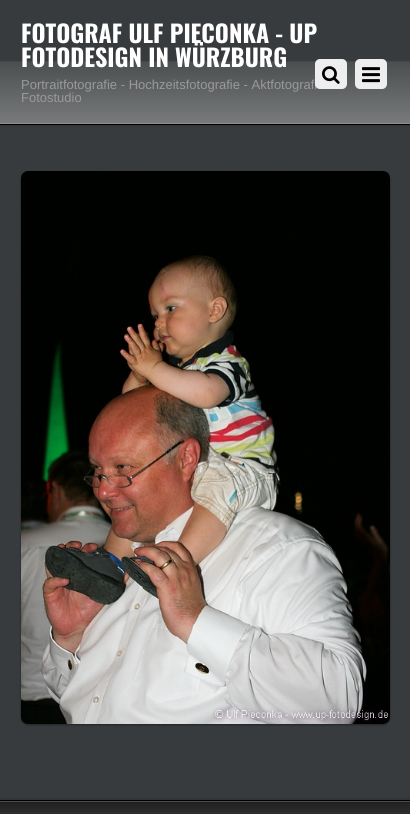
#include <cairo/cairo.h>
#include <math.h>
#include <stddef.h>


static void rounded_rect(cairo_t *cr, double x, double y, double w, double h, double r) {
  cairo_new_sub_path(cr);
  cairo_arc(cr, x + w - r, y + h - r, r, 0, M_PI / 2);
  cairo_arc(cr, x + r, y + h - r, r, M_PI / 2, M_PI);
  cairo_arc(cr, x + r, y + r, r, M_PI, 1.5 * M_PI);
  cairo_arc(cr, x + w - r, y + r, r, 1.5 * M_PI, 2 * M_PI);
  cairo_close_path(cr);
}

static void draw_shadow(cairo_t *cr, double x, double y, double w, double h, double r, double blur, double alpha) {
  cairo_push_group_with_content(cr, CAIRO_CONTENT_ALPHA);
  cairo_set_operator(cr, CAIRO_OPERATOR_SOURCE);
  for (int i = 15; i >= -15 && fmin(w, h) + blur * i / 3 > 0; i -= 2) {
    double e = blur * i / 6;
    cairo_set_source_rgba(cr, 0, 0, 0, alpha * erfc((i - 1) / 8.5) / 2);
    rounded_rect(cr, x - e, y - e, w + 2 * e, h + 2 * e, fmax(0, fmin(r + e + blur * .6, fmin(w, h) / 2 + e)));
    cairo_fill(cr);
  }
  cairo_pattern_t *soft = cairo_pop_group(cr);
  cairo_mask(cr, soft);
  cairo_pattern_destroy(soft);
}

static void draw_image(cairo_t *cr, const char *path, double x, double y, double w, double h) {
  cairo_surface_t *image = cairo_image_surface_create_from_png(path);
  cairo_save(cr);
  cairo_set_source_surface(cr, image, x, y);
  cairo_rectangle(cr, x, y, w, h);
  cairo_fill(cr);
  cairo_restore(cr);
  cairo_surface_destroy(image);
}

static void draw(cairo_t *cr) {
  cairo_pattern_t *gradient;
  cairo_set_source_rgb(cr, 56 / 255.0, 59 / 255.0, 61 / 255.0);
  cairo_paint(cr);
  cairo_set_source_rgb(cr, 0, 0, 0);
  draw_shadow(cr, 0, 0, 410, 125, 0, 1, 0.3);
  gradient = cairo_pattern_create_linear(205, 124, 205, 0);
  cairo_pattern_add_color_stop_rgba(gradient, 0, 120 / 255.0, 122 / 255.0, 123 / 255.0, 1);
  cairo_pattern_add_color_stop_rgba(gradient, 0.5, 76 / 255.0, 79 / 255.0, 80 / 255.0, 1);
  cairo_pattern_add_color_stop_rgba(gradient, 0.51, 56 / 255.0, 59 / 255.0, 61 / 255.0, 1);
  cairo_set_source(cr, gradient);
  cairo_pattern_destroy(gradient);
  cairo_rectangle(cr, 0, 0, 410, 123);
  cairo_fill(cr);
  cairo_set_source_rgb(cr, 140 / 255.0, 142 / 255.0, 143 / 255.0);
  cairo_rectangle(cr, 0, 123, 410, 1);
  cairo_fill(cr);
  cairo_set_source_rgb(cr, 0, 0, 0);
  cairo_rectangle(cr, 0, 124, 410, 1);
  cairo_fill(cr);
  cairo_set_source_rgb(cr, 238 / 255.0, 238 / 255.0, 238 / 255.0);
  rounded_rect(cr, 355, 59, 32, 30, 5);
  cairo_fill(cr);
  draw_image(cr, "images/2.png", 362, 67, 18, 16);
  cairo_set_source_rgb(cr, 0, 0, 0);
  draw_shadow(cr, 21, 172, 369, 553, 7, 1, 0.4);
  draw_image(cr, "images/3.png", 21, 171, 369, 553);
  draw_shadow(cr, 0, 799, 410, 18, 0, 1, 0.2);
  cairo_set_source_rgb(cr, 6 / 255.0, 6 / 255.0, 6 / 255.0);
  cairo_rectangle(cr, 0, 802, 410, 12);
  cairo_fill(cr);
  cairo_set_source_rgb(cr, 56 / 255.0, 56 / 255.0, 56 / 255.0);
  cairo_rectangle(cr, 0, 801, 410, 1);
  cairo_fill(cr);
  cairo_set_source_rgb(cr, 0, 0, 0);
  cairo_rectangle(cr, 0, 800, 410, 1);
  cairo_fill(cr);
  gradient = cairo_pattern_create_linear(205, 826, 205, 801);
  cairo_pattern_add_color_stop_rgba(gradient, 0, 1, 1, 1, 0.22);
  cairo_pattern_add_color_stop_rgba(gradient, 1, 1, 1, 1, 0.1);
  cairo_set_source(cr, gradient);
  cairo_pattern_destroy(gradient);
  cairo_rectangle(cr, 0, 801, 410, 13);
  cairo_fill(cr);
  cairo_select_font_face(cr, "Oswald", CAIRO_FONT_SLANT_NORMAL, CAIRO_FONT_WEIGHT_BOLD);
  cairo_set_font_size(cr, 24);
  cairo_set_source_rgb(cr, 1, 1, 1);
  cairo_move_to(cr, 21, 43);
  cairo_show_text(cr, "FOTOGRAF ULF PIECONKA - UP");
  cairo_move_to(cr, 21, 67);
  cairo_show_text(cr, "FOTODESIGN IN WÜRZBURG");
  cairo_select_font_face(cr, "Liberation Sans", CAIRO_FONT_SLANT_NORMAL, CAIRO_FONT_WEIGHT_NORMAL);
  cairo_set_font_size(cr, 13);
  cairo_set_source_rgb(cr, 153 / 255.0, 153 / 255.0, 153 / 255.0);
  cairo_move_to(cr, 21, 89);
  cairo_show_text(cr, "Portraitfotografie - Hochzeitsfotografie - Aktfotografi");
  cairo_move_to(cr, 21, 102);
  cairo_show_text(cr, "Fotostudio");
  cairo_set_source_rgb(cr, 238 / 255.0, 238 / 255.0, 238 / 255.0);
  rounded_rect(cr, 315, 59, 32, 30, 5);
  cairo_fill(cr);
  draw_image(cr, "images/1.png", 322, 66, 18, 18);
}

int main(void) {
  cairo_surface_t *surface = cairo_image_surface_create(CAIRO_FORMAT_RGB24, 410, 814);
  cairo_t *cr = cairo_create(surface);
  cairo_font_options_t *options = cairo_font_options_create();
  cairo_font_options_set_hint_metrics(options, CAIRO_HINT_METRICS_OFF);
  cairo_font_options_set_hint_style(options, CAIRO_HINT_STYLE_NONE);
  cairo_set_font_options(cr, options);
  cairo_set_miter_limit(cr, 4);
  draw(cr);
  cairo_surface_write_to_png(surface, "out.png");
  cairo_font_options_destroy(options);
  cairo_destroy(cr);
  cairo_surface_destroy(surface);
  return 0;
}
